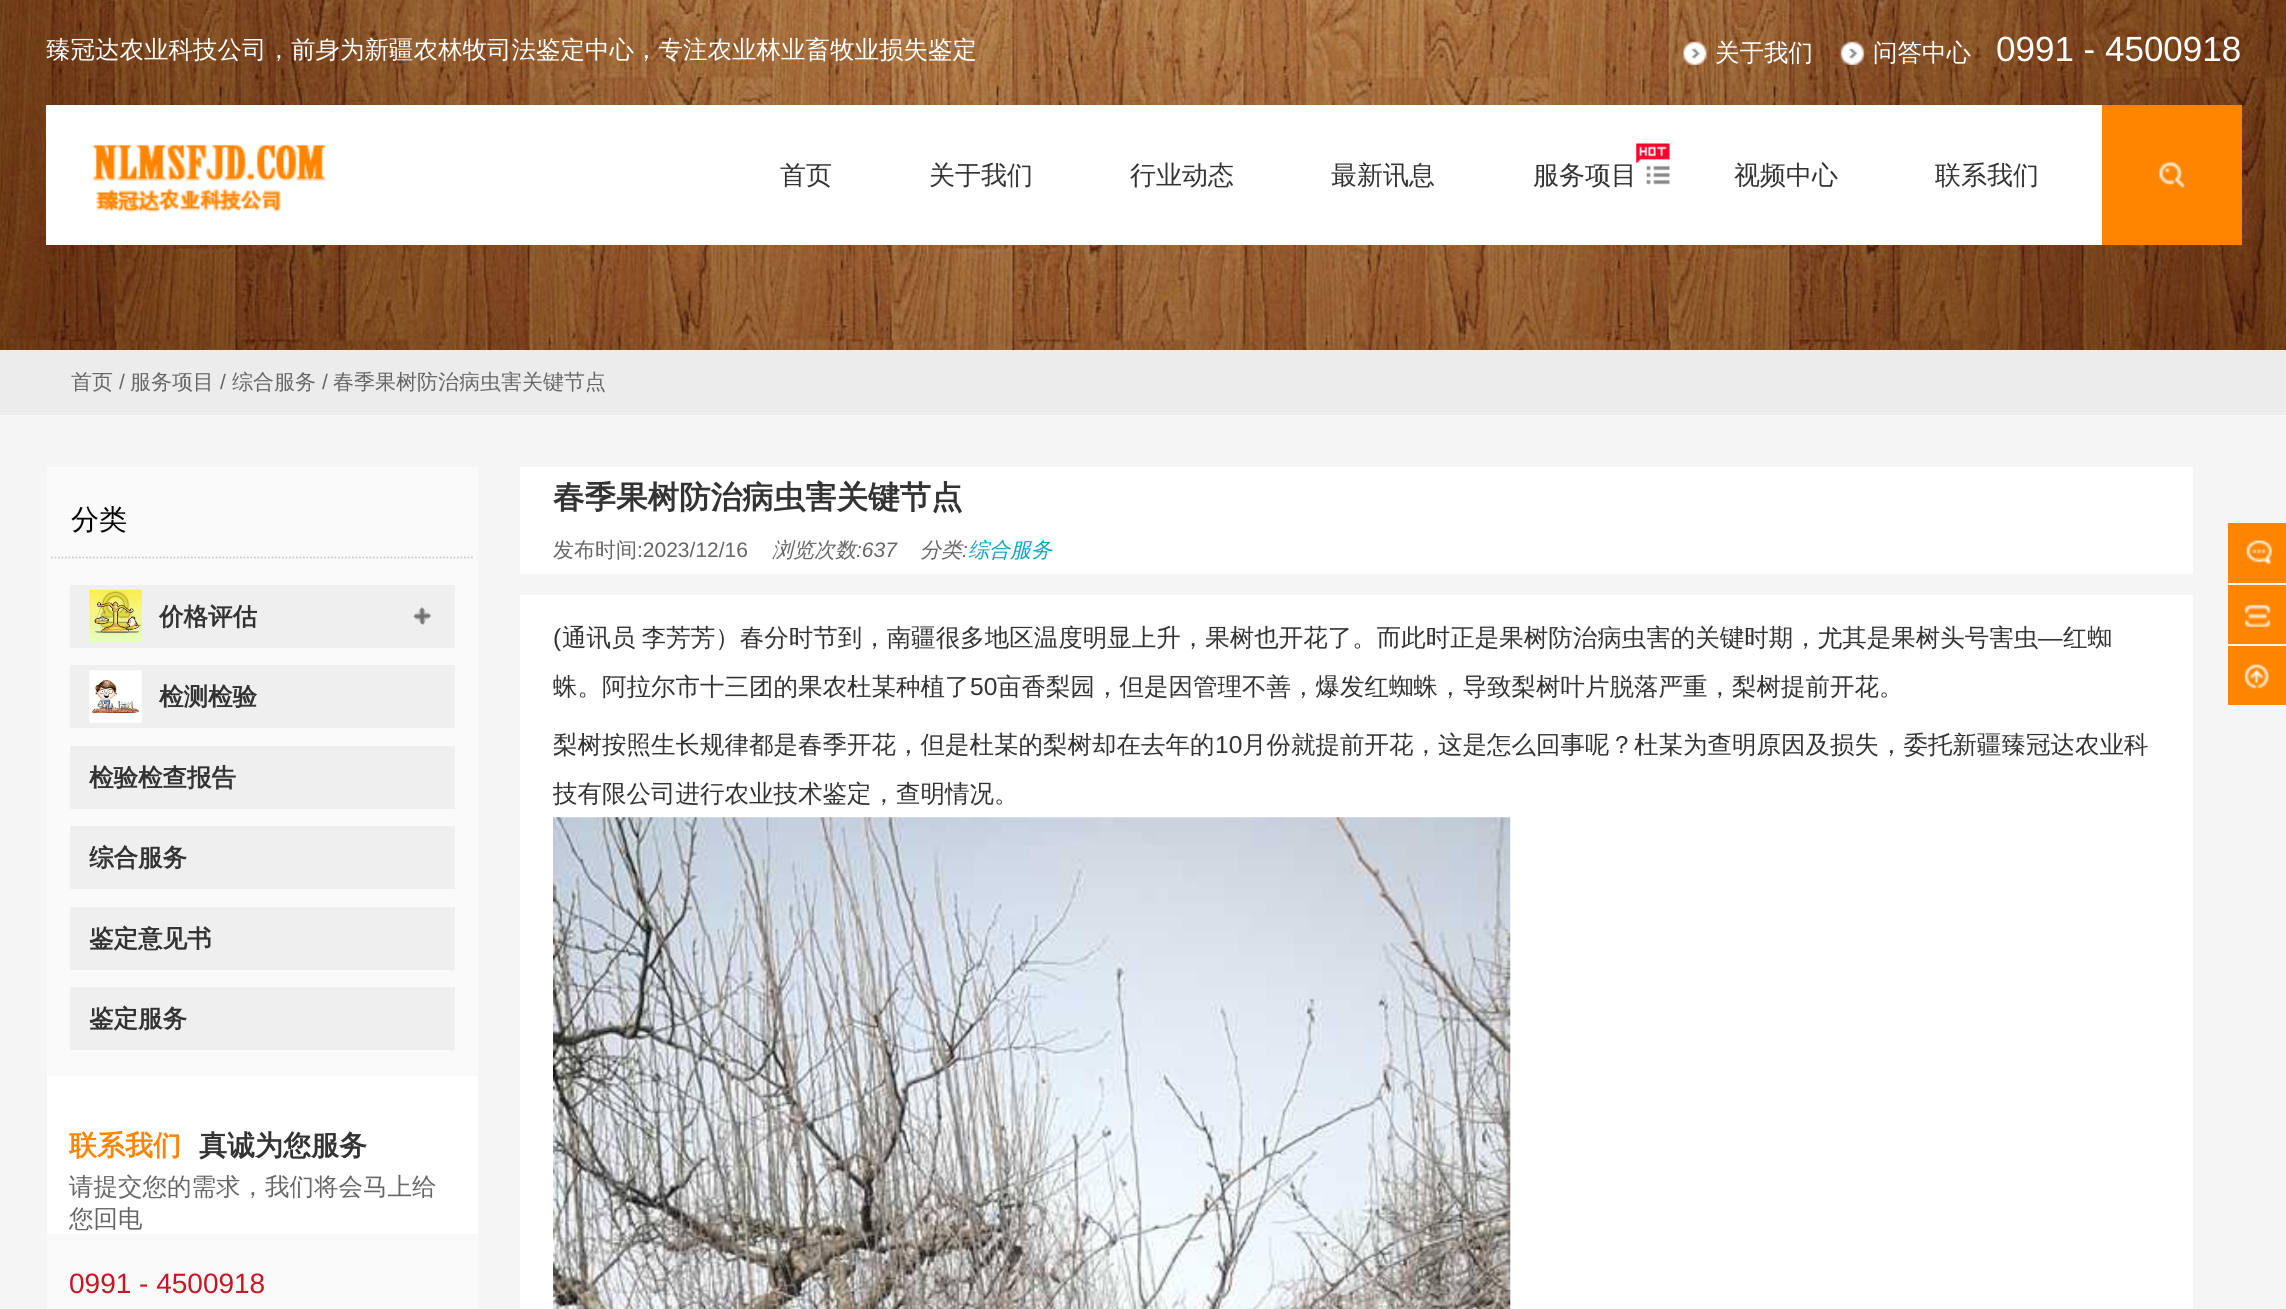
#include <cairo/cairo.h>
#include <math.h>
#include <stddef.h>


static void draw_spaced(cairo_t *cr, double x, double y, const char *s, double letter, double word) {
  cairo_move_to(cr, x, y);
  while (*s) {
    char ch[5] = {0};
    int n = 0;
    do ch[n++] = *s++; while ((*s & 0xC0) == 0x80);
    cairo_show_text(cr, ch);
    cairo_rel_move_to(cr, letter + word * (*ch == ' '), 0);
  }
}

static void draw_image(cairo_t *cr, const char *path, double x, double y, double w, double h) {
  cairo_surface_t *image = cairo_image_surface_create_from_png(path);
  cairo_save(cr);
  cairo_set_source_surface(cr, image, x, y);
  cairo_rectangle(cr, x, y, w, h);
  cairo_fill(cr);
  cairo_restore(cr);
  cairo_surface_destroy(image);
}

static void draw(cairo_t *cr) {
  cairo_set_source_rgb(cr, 245 / 255.0, 245 / 255.0, 245 / 255.0);
  cairo_paint(cr);
  draw_image(cr, "images/1.png", 0, 0, 2286, 350);
  draw_image(cr, "images/2.png", 1683, 41, 24, 24);
  draw_image(cr, "images/3.png", 1840, 41, 25, 24);
  cairo_set_source_rgb(cr, 1, 1, 1);
  cairo_rectangle(cr, 46, 105, 2056, 140);
  cairo_fill(cr);
  draw_image(cr, "images/4.png", 92, 144, 234, 69);
  draw_image(cr, "images/5.png", 1636, 143, 34, 20);
  draw_image(cr, "images/6.png", 1646, 165, 24, 20);
  cairo_set_source_rgb(cr, 1, 132 / 255.0, 0);
  cairo_rectangle(cr, 2102, 105, 140, 140);
  cairo_fill(cr);
  draw_image(cr, "images/7.png", 2159, 161, 26, 27);
  cairo_set_source_rgb(cr, 236 / 255.0, 236 / 255.0, 236 / 255.0);
  cairo_rectangle(cr, 0, 350, 2286, 65);
  cairo_fill(cr);
  cairo_set_source_rgb(cr, 250 / 255.0, 250 / 255.0, 250 / 255.0);
  cairo_rectangle(cr, 47, 467, 431, 609);
  cairo_fill(cr);
  cairo_new_path(cr);
  cairo_move_to(cr, 51, 557.5);
  cairo_line_to(cr, 474, 557.5);
  cairo_set_source_rgb(cr, 204 / 255.0, 204 / 255.0, 204 / 255.0);
  cairo_set_line_width(cr, 1.8);
  cairo_set_dash(cr, (double[]){1.75, 1.75}, 2, 0);
  cairo_stroke(cr);
  cairo_set_source_rgb(cr, 239 / 255.0, 239 / 255.0, 239 / 255.0);
  cairo_rectangle(cr, 70, 585, 385, 63);
  cairo_fill(cr);
  draw_image(cr, "images/8.png", 89, 589, 53, 54);
  draw_image(cr, "images/9.png", 413, 607, 19, 18);
  cairo_rectangle(cr, 70, 665, 385, 63);
  cairo_fill(cr);
  draw_image(cr, "images/10.png", 89, 670, 53, 53);
  cairo_rectangle(cr, 70, 746, 385, 63);
  cairo_fill(cr);
  cairo_rectangle(cr, 70, 826, 385, 63);
  cairo_fill(cr);
  cairo_rectangle(cr, 70, 907, 385, 63);
  cairo_fill(cr);
  cairo_rectangle(cr, 70, 987, 385, 63);
  cairo_fill(cr);
  cairo_set_source_rgb(cr, 1, 1, 1);
  cairo_rectangle(cr, 47, 1076, 431, 158);
  cairo_fill(cr);
  cairo_set_source_rgb(cr, 249 / 255.0, 249 / 255.0, 249 / 255.0);
  cairo_rectangle(cr, 47, 1234, 431, 75);
  cairo_fill(cr);
  cairo_set_source_rgb(cr, 1, 1, 1);
  cairo_rectangle(cr, 520, 467, 1673, 107);
  cairo_fill(cr);
  cairo_rectangle(cr, 520, 595, 1673, 714);
  cairo_fill(cr);
  draw_image(cr, "images/11.png", 553, 817, 958, 492);
  cairo_set_source_rgb(cr, 1, 132 / 255.0, 0);
  cairo_rectangle(cr, 2228, 523, 58, 60);
  cairo_fill(cr);
  draw_image(cr, "images/12.png", 2246, 540, 27, 25);
  cairo_rectangle(cr, 2228, 585, 58, 59);
  cairo_fill(cr);
  draw_image(cr, "images/13.png", 2244, 604, 27, 24);
  cairo_rectangle(cr, 2228, 646, 58, 59);
  cairo_fill(cr);
  draw_image(cr, "images/14.png", 2244, 664, 25, 25);
  cairo_select_font_face(cr, "WenQuanYi Zen Hei Medium", CAIRO_FONT_SLANT_NORMAL, CAIRO_FONT_WEIGHT_NORMAL);
  cairo_set_font_size(cr, 24.5);
  cairo_set_source_rgb(cr, 1, 1, 1);
  cairo_move_to(cr, 46, 58);
  cairo_show_text(cr, "臻冠达农业科技公司，前身为新疆农林牧司法鉴定中心，专注农业林业畜牧业损失鉴定");
  cairo_move_to(cr, 1715, 61);
  cairo_show_text(cr, "关于我们");
  cairo_move_to(cr, 1873, 61);
  cairo_show_text(cr, "问答中心");
  cairo_select_font_face(cr, "Liberation Sans", CAIRO_FONT_SLANT_NORMAL, CAIRO_FONT_WEIGHT_NORMAL);
  cairo_set_font_size(cr, 35);
  cairo_move_to(cr, 1996, 61);
  cairo_show_text(cr, "0991 - 4500918");
  cairo_select_font_face(cr, "WenQuanYi Zen Hei Medium", CAIRO_FONT_SLANT_NORMAL, CAIRO_FONT_WEIGHT_NORMAL);
  cairo_set_font_size(cr, 26);
  cairo_set_source_rgb(cr, 51 / 255.0, 51 / 255.0, 51 / 255.0);
  cairo_move_to(cr, 780, 184);
  cairo_show_text(cr, "首页");
  cairo_move_to(cr, 929, 184);
  cairo_show_text(cr, "关于我们");
  cairo_move_to(cr, 1130, 184);
  cairo_show_text(cr, "行业动态");
  cairo_move_to(cr, 1331, 184);
  cairo_show_text(cr, "最新讯息");
  cairo_move_to(cr, 1533, 184);
  cairo_show_text(cr, "服务项目");
  cairo_move_to(cr, 1734, 184);
  cairo_show_text(cr, "视频中心");
  cairo_move_to(cr, 1935, 184);
  cairo_show_text(cr, "联系我们");
  cairo_set_font_size(cr, 21);
  cairo_set_source_rgb(cr, 102 / 255.0, 102 / 255.0, 102 / 255.0);
  cairo_move_to(cr, 71, 389);
  cairo_show_text(cr, "首页");
  cairo_select_font_face(cr, "Liberation Sans", CAIRO_FONT_SLANT_NORMAL, CAIRO_FONT_WEIGHT_NORMAL);
  cairo_move_to(cr, 119, 389);
  cairo_show_text(cr, "/");
  cairo_select_font_face(cr, "WenQuanYi Zen Hei Medium", CAIRO_FONT_SLANT_NORMAL, CAIRO_FONT_WEIGHT_NORMAL);
  cairo_move_to(cr, 130, 389);
  cairo_show_text(cr, "服务项目");
  cairo_select_font_face(cr, "Liberation Sans", CAIRO_FONT_SLANT_NORMAL, CAIRO_FONT_WEIGHT_NORMAL);
  cairo_move_to(cr, 220, 389);
  cairo_show_text(cr, "/");
  cairo_select_font_face(cr, "WenQuanYi Zen Hei Medium", CAIRO_FONT_SLANT_NORMAL, CAIRO_FONT_WEIGHT_NORMAL);
  cairo_move_to(cr, 232, 389);
  cairo_show_text(cr, "综合服务");
  cairo_select_font_face(cr, "Liberation Sans", CAIRO_FONT_SLANT_NORMAL, CAIRO_FONT_WEIGHT_NORMAL);
  cairo_move_to(cr, 322, 389);
  cairo_show_text(cr, "/");
  cairo_select_font_face(cr, "WenQuanYi Zen Hei Medium", CAIRO_FONT_SLANT_NORMAL, CAIRO_FONT_WEIGHT_NORMAL);
  cairo_move_to(cr, 333, 389);
  cairo_show_text(cr, "春季果树防治病虫害关键节点");
  cairo_set_font_size(cr, 28);
  cairo_set_source_rgb(cr, 0, 0, 0);
  cairo_move_to(cr, 71, 529);
  cairo_show_text(cr, "分类");
  cairo_select_font_face(cr, "WenQuanYi Zen Hei", CAIRO_FONT_SLANT_NORMAL, CAIRO_FONT_WEIGHT_BOLD);
  cairo_set_font_size(cr, 24.5);
  cairo_set_source_rgb(cr, 51 / 255.0, 51 / 255.0, 51 / 255.0);
  cairo_move_to(cr, 159, 625);
  cairo_show_text(cr, "价格评估");
  cairo_move_to(cr, 159, 705);
  cairo_show_text(cr, "检测检验");
  cairo_move_to(cr, 89, 786);
  cairo_show_text(cr, "检验检查报告");
  cairo_move_to(cr, 89, 866);
  cairo_show_text(cr, "综合服务");
  cairo_move_to(cr, 89, 947);
  cairo_show_text(cr, "鉴定意见书");
  cairo_move_to(cr, 89, 1027);
  cairo_show_text(cr, "鉴定服务");
  cairo_set_font_size(cr, 28);
  cairo_set_source_rgb(cr, 1, 132 / 255.0, 0);
  cairo_move_to(cr, 69, 1155);
  cairo_show_text(cr, "联系我们");
  cairo_set_source_rgb(cr, 51 / 255.0, 51 / 255.0, 51 / 255.0);
  cairo_move_to(cr, 199, 1155);
  cairo_show_text(cr, "真诚为您服务");
  cairo_select_font_face(cr, "WenQuanYi Zen Hei Medium", CAIRO_FONT_SLANT_NORMAL, CAIRO_FONT_WEIGHT_NORMAL);
  cairo_set_font_size(cr, 24.5);
  cairo_set_source_rgb(cr, 102 / 255.0, 102 / 255.0, 102 / 255.0);
  cairo_move_to(cr, 69, 1195);
  cairo_show_text(cr, "请提交您的需求，我们将会马上给");
  cairo_move_to(cr, 69, 1227);
  cairo_show_text(cr, "您回电");
  cairo_select_font_face(cr, "Liberation Sans", CAIRO_FONT_SLANT_NORMAL, CAIRO_FONT_WEIGHT_NORMAL);
  cairo_set_font_size(cr, 28);
  cairo_set_source_rgb(cr, 200 / 255.0, 22 / 255.0, 35 / 255.0);
  cairo_move_to(cr, 69, 1293);
  cairo_show_text(cr, "0991 - 4500918");
  cairo_select_font_face(cr, "WenQuanYi Zen Hei", CAIRO_FONT_SLANT_NORMAL, CAIRO_FONT_WEIGHT_BOLD);
  cairo_set_font_size(cr, 31.5);
  cairo_set_source_rgb(cr, 51 / 255.0, 51 / 255.0, 51 / 255.0);
  cairo_move_to(cr, 553, 508);
  cairo_show_text(cr, "春季果树防治病虫害关键节点");
  cairo_select_font_face(cr, "WenQuanYi Zen Hei Medium", CAIRO_FONT_SLANT_NORMAL, CAIRO_FONT_WEIGHT_NORMAL);
  cairo_set_font_size(cr, 21);
  cairo_set_source_rgb(cr, 102 / 255.0, 102 / 255.0, 102 / 255.0);
  cairo_move_to(cr, 553, 557);
  cairo_show_text(cr, "发布时间");
  cairo_select_font_face(cr, "Liberation Sans", CAIRO_FONT_SLANT_NORMAL, CAIRO_FONT_WEIGHT_NORMAL);
  cairo_move_to(cr, 637, 557);
  cairo_show_text(cr, ":2023/12/16");
  cairo_select_font_face(cr, "WenQuanYi Zen Hei Medium", CAIRO_FONT_SLANT_ITALIC, CAIRO_FONT_WEIGHT_NORMAL);
  cairo_move_to(cr, 772, 557);
  cairo_show_text(cr, "浏览次数");
  cairo_select_font_face(cr, "Liberation Sans", CAIRO_FONT_SLANT_ITALIC, CAIRO_FONT_WEIGHT_NORMAL);
  cairo_move_to(cr, 856, 557);
  cairo_show_text(cr, ":637");
  cairo_select_font_face(cr, "WenQuanYi Zen Hei Medium", CAIRO_FONT_SLANT_ITALIC, CAIRO_FONT_WEIGHT_NORMAL);
  cairo_move_to(cr, 920, 557);
  cairo_show_text(cr, "分类");
  cairo_select_font_face(cr, "Liberation Sans", CAIRO_FONT_SLANT_ITALIC, CAIRO_FONT_WEIGHT_NORMAL);
  cairo_move_to(cr, 962, 557);
  cairo_show_text(cr, ":");
  cairo_select_font_face(cr, "WenQuanYi Zen Hei Medium", CAIRO_FONT_SLANT_ITALIC, CAIRO_FONT_WEIGHT_NORMAL);
  cairo_set_source_rgb(cr, 17 / 255.0, 163 / 255.0, 194 / 255.0);
  cairo_move_to(cr, 968, 557);
  cairo_show_text(cr, "综合服务");
  cairo_select_font_face(cr, "Liberation Sans", CAIRO_FONT_SLANT_NORMAL, CAIRO_FONT_WEIGHT_NORMAL);
  cairo_set_font_size(cr, 24.5);
  cairo_set_source_rgb(cr, 51 / 255.0, 51 / 255.0, 51 / 255.0);
  cairo_move_to(cr, 553, 646);
  cairo_show_text(cr, "(");
  cairo_select_font_face(cr, "WenQuanYi Zen Hei Medium", CAIRO_FONT_SLANT_NORMAL, CAIRO_FONT_WEIGHT_NORMAL);
  draw_spaced(cr, 562, 646, "通讯员 李芳芳）春分时节到，南疆很多地区温度明显上升，果树也开花了。而此时正是果树防治病虫害的关键时期，尤其是果树头号害虫", 0, -1);
  cairo_select_font_face(cr, "Liberation Sans", CAIRO_FONT_SLANT_NORMAL, CAIRO_FONT_WEIGHT_NORMAL);
  cairo_move_to(cr, 2038, 646);
  cairo_show_text(cr, "—");
  cairo_select_font_face(cr, "WenQuanYi Zen Hei Medium", CAIRO_FONT_SLANT_NORMAL, CAIRO_FONT_WEIGHT_NORMAL);
  cairo_move_to(cr, 2063, 646);
  cairo_show_text(cr, "红蜘");
  cairo_move_to(cr, 553, 695);
  cairo_show_text(cr, "蛛。阿拉尔市十三团的果农杜某种植了");
  cairo_select_font_face(cr, "Liberation Sans", CAIRO_FONT_SLANT_NORMAL, CAIRO_FONT_WEIGHT_NORMAL);
  cairo_move_to(cr, 970, 695);
  cairo_show_text(cr, "50");
  cairo_select_font_face(cr, "WenQuanYi Zen Hei Medium", CAIRO_FONT_SLANT_NORMAL, CAIRO_FONT_WEIGHT_NORMAL);
  cairo_move_to(cr, 997, 695);
  cairo_show_text(cr, "亩香梨园，但是因管理不善，爆发红蜘蛛，导致梨树叶片脱落严重，梨树提前开花。");
  cairo_move_to(cr, 553, 753);
  cairo_show_text(cr, "梨树按照生长规律都是春季开花，但是杜某的梨树却在去年的");
  cairo_select_font_face(cr, "Liberation Sans", CAIRO_FONT_SLANT_NORMAL, CAIRO_FONT_WEIGHT_NORMAL);
  cairo_move_to(cr, 1215, 753);
  cairo_show_text(cr, "10");
  cairo_select_font_face(cr, "WenQuanYi Zen Hei Medium", CAIRO_FONT_SLANT_NORMAL, CAIRO_FONT_WEIGHT_NORMAL);
  cairo_move_to(cr, 1242, 753);
  cairo_show_text(cr, "月份就提前开花，这是怎么回事呢？杜某为查明原因及损失，委托新疆臻冠达农业科");
  cairo_move_to(cr, 553, 802);
  cairo_show_text(cr, "技有限公司进行农业技术鉴定，查明情况。");
}

int main(void) {
  cairo_surface_t *surface = cairo_image_surface_create(CAIRO_FORMAT_RGB24, 2286, 1309);
  cairo_t *cr = cairo_create(surface);
  cairo_font_options_t *options = cairo_font_options_create();
  cairo_font_options_set_hint_metrics(options, CAIRO_HINT_METRICS_OFF);
  cairo_font_options_set_hint_style(options, CAIRO_HINT_STYLE_NONE);
  cairo_set_font_options(cr, options);
  cairo_set_miter_limit(cr, 4);
  draw(cr);
  cairo_surface_write_to_png(surface, "out.png");
  cairo_font_options_destroy(options);
  cairo_destroy(cr);
  cairo_surface_destroy(surface);
  return 0;
}
